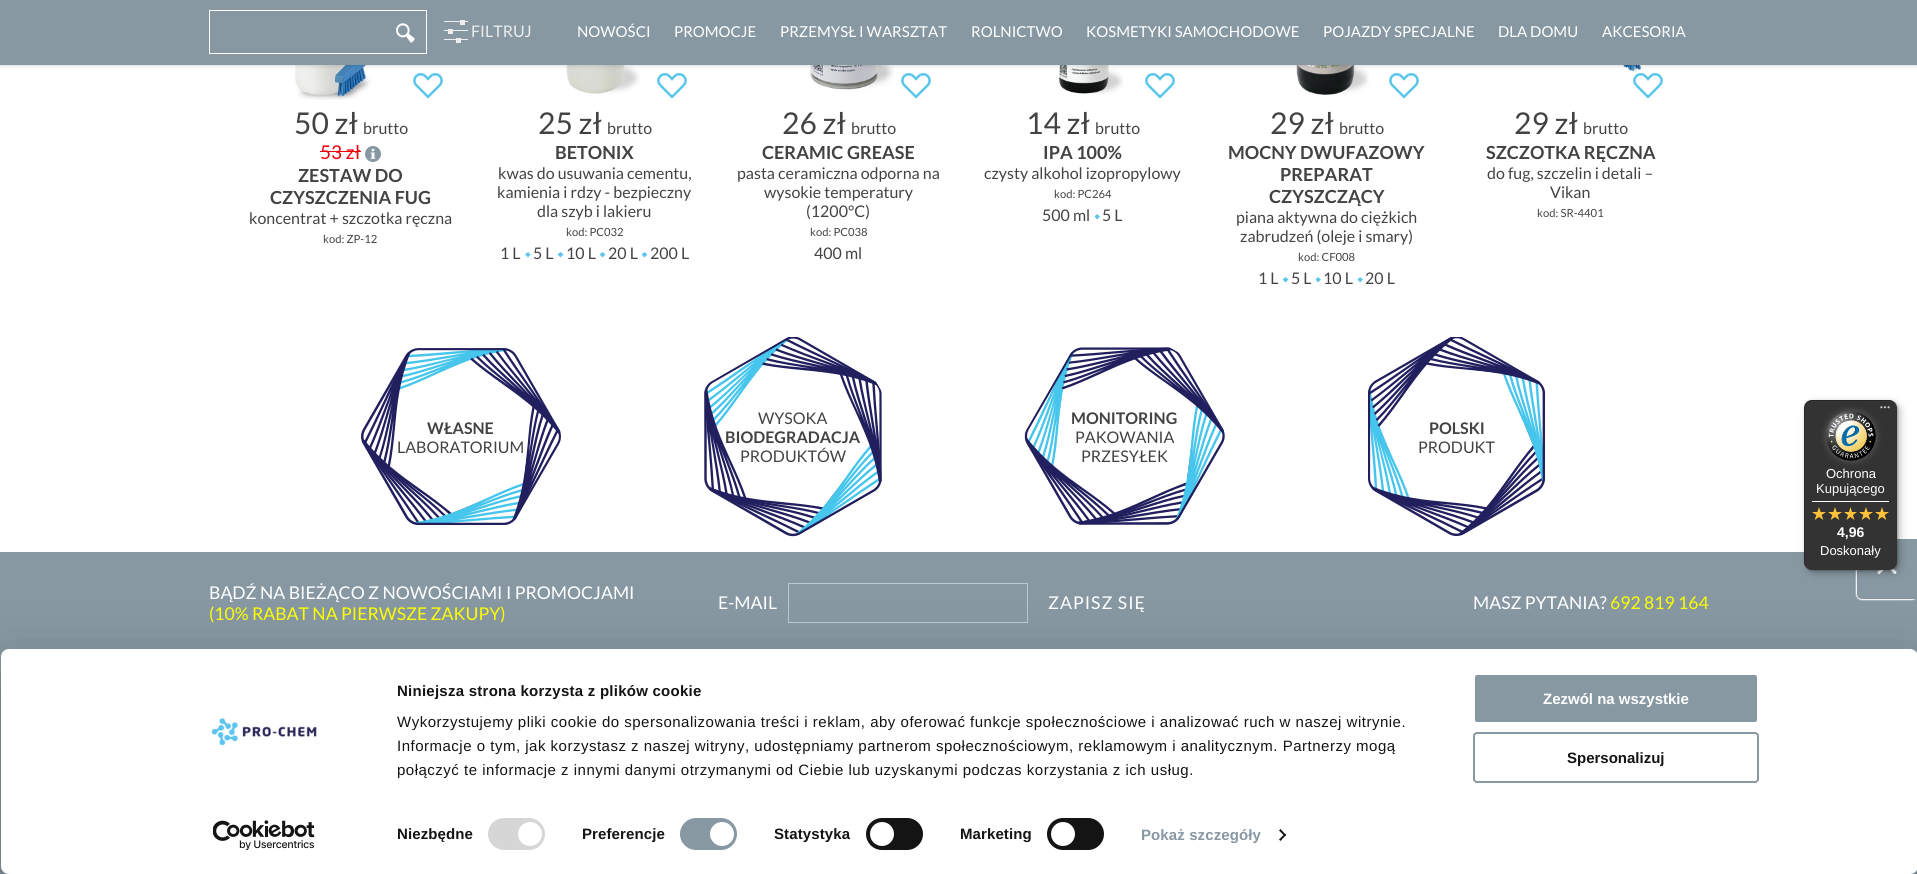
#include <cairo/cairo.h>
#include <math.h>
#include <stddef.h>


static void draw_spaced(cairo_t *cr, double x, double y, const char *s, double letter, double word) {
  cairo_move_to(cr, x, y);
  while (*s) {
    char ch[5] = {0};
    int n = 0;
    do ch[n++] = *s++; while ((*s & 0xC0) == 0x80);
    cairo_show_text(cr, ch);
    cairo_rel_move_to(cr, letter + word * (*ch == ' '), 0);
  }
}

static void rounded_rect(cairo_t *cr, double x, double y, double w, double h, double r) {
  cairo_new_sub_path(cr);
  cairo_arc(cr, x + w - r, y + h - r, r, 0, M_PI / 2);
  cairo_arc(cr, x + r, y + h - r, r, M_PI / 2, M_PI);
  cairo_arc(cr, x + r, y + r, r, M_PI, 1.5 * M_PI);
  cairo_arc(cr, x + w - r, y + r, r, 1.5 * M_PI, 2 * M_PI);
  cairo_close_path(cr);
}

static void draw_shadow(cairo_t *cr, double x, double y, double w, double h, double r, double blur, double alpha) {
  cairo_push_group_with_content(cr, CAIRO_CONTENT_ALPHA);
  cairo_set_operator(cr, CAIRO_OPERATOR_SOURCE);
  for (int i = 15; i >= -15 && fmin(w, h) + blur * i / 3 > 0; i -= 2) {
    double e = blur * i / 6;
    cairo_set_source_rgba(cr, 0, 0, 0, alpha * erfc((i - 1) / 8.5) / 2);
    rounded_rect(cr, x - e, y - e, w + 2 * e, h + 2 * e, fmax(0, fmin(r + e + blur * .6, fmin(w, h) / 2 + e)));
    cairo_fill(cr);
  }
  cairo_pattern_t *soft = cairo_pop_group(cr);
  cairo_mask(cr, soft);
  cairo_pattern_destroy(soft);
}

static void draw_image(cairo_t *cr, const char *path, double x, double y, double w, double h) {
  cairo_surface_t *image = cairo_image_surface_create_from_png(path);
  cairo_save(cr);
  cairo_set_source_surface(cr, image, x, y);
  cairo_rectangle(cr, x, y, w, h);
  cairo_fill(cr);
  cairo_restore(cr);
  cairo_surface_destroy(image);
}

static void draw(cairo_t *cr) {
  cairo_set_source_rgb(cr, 1, 1, 1);
  cairo_paint(cr);
  draw_image(cr, "images/2.png", 295, 65, 119, 35);
  draw_image(cr, "images/3.png", 413, 73, 30, 26);
  draw_image(cr, "images/5.png", 565, 65, 75, 29);
  draw_image(cr, "images/3.png", 657, 73, 30, 26);
  draw_image(cr, "images/6.png", 810, 65, 84, 25);
  draw_image(cr, "images/3.png", 901, 73, 30, 26);
  draw_image(cr, "images/7.png", 1058, 65, 65, 30);
  draw_image(cr, "images/3.png", 1145, 73, 30, 26);
  draw_image(cr, "images/8.png", 1296, 65, 73, 30);
  draw_image(cr, "images/3.png", 1389, 73, 30, 26);
  draw_image(cr, "images/9.png", 1575, 65, 68, 7);
  draw_image(cr, "images/3.png", 1633, 73, 30, 26);
  cairo_set_source_rgb(cr, 0, 0, 0);
  draw_shadow(cr, 0, -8, 1917, 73, 0, 2.5, 0.2);
  cairo_set_source_rgb(cr, 135 / 255.0, 152 / 255.0, 162 / 255.0);
  cairo_rectangle(cr, 0, 0, 1917, 65);
  cairo_fill(cr);
  cairo_rectangle(cr, 209.5, 10.5, 217, 43);
  cairo_set_source_rgb(cr, 1, 1, 1);
  cairo_set_line_width(cr, 1);
  cairo_stroke(cr);
  draw_image(cr, "images/1.png", 396, 23, 19, 20);
  cairo_set_source_rgb(cr, 237 / 255.0, 237 / 255.0, 237 / 255.0);
  cairo_rectangle(cr, 444, 21, 24, 1);
  cairo_fill(cr);
  cairo_rectangle(cr, 460, 20, 5, 5);
  cairo_fill(cr);
  cairo_rectangle(cr, 444, 30, 24, 1);
  cairo_fill(cr);
  cairo_rectangle(cr, 448, 29, 5, 5);
  cairo_fill(cr);
  cairo_rectangle(cr, 444, 39, 24, 1);
  cairo_fill(cr);
  cairo_rectangle(cr, 456, 38, 5, 5);
  cairo_fill(cr);
  cairo_set_source_rgb(cr, 237 / 255.0, 0, 10 / 255.0);
  cairo_rectangle(cr, 320, 151, 41, 1);
  cairo_fill(cr);
  draw_image(cr, "images/4.png", 365, 146, 16, 16);
  cairo_set_source_rgb(cr, 93 / 255.0, 198 / 255.0, 237 / 255.0);
  cairo_new_path(cr);
  cairo_move_to(cr, 1097, 214);
  cairo_line_to(cr, 1100, 216.5);
  cairo_line_to(cr, 1097, 219.5);
  cairo_line_to(cr, 1094.5, 216.5);
  cairo_close_path(cr);
  cairo_fill(cr);
  cairo_new_path(cr);
  cairo_move_to(cr, 1360, 277);
  cairo_line_to(cr, 1363, 279.5);
  cairo_line_to(cr, 1360, 282.5);
  cairo_line_to(cr, 1357.5, 279.5);
  cairo_close_path(cr);
  cairo_fill(cr);
  cairo_set_source_rgb(cr, 135 / 255.0, 152 / 255.0, 162 / 255.0);
  cairo_rectangle(cr, 0, 552, 1917, 322);
  cairo_fill(cr);
  cairo_set_source_rgb(cr, 1, 1, 1);
  draw_shadow(cr, 1856, 538, 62, 62, 6, 0.5, 1);
  cairo_set_source_rgb(cr, 135 / 255.0, 152 / 255.0, 162 / 255.0);
  cairo_new_path(cr);
  cairo_move_to(cr, 1862, 539);
  cairo_line_to(cr, 1917, 539);
  cairo_line_to(cr, 1917, 599);
  cairo_line_to(cr, 1862, 599);
  cairo_curve_to(cr, 1859, 599, 1857, 597, 1857, 594);
  cairo_line_to(cr, 1857, 544);
  cairo_curve_to(cr, 1857, 541, 1859, 539, 1862, 539);
  cairo_close_path(cr);
  cairo_fill(cr);
  cairo_new_path(cr);
  cairo_move_to(cr, 1879, 572.5);
  cairo_line_to(cr, 1887, 564.5);
  cairo_line_to(cr, 1895, 572.5);
  cairo_set_source_rgb(cr, 1, 1, 1);
  cairo_set_line_width(cr, 3);
  cairo_set_line_cap(cr, CAIRO_LINE_CAP_ROUND);
  cairo_set_line_join(cr, CAIRO_LINE_JOIN_ROUND);
  cairo_stroke(cr);
  cairo_set_source_rgb(cr, 0, 0, 0);
  draw_shadow(cr, 1807, 403, 93, 170, 8, 4, 0.25);
  draw_shadow(cr, 1805, 401, 93, 170, 8, 1, 0.25);
  cairo_set_source_rgb(cr, 51 / 255.0, 51 / 255.0, 51 / 255.0);
  rounded_rect(cr, 1804, 400, 93, 170, 8);
  cairo_fill(cr);
  cairo_set_source_rgba(cr, 0, 0, 0, 0.25);
  cairo_new_path(cr);
  cairo_move_to(cr, 1813, 401);
  cairo_line_to(cr, 1890, 401);
  cairo_curve_to(cr, 1892, 401, 1894, 402, 1896, 404);
  cairo_curve_to(cr, 1894, 402, 1892, 400, 1889, 400);
  cairo_line_to(cr, 1812, 400);
  cairo_curve_to(cr, 1808, 400, 1804, 404, 1804, 408);
  cairo_line_to(cr, 1804, 562);
  cairo_curve_to(cr, 1804, 565, 1806, 567, 1808, 569);
  cairo_curve_to(cr, 1806, 567, 1805, 565, 1805, 563);
  cairo_line_to(cr, 1805, 409);
  cairo_curve_to(cr, 1805, 405, 1809, 401, 1813, 401);
  cairo_close_path(cr);
  cairo_fill(cr);
  cairo_set_source_rgb(cr, 1, 1, 1);
  draw_shadow(cr, 1831, 416, 40, 40, 20, 5, 0.75);
  draw_image(cr, "images/14.png", 1880, 406, 10, 3);
  draw_image(cr, "images/15.png", 1826, 411, 50, 50);
  cairo_set_source_rgb(cr, 1, 1, 1);
  cairo_rectangle(cr, 1812, 501, 77, 1);
  cairo_fill(cr);
  draw_image(cr, "images/16.png", 1812, 507, 14, 13);
  draw_image(cr, "images/16.png", 1828, 507, 14, 13);
  draw_image(cr, "images/17.png", 1844, 507, 13, 13);
  draw_image(cr, "images/16.png", 1859, 507, 14, 13);
  draw_image(cr, "images/16.png", 1875, 507, 14, 13);
  cairo_rectangle(cr, 788.5, 583.5, 239, 39);
  cairo_set_source_rgb(cr, 191 / 255.0, 200 / 255.0, 205 / 255.0);
  cairo_set_line_width(cr, 1);
  cairo_set_line_cap(cr, CAIRO_LINE_CAP_BUTT);
  cairo_set_line_join(cr, CAIRO_LINE_JOIN_MITER);
  cairo_stroke(cr);
  cairo_save(cr);
  cairo_set_fill_rule(cr, CAIRO_FILL_RULE_EVEN_ODD);
  cairo_new_path(cr);
  cairo_move_to(cr, 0, 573);
  cairo_line_to(cr, 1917, 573);
  cairo_line_to(cr, 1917, 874);
  cairo_line_to(cr, 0, 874);
  cairo_close_path(cr);
  cairo_move_to(cr, 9, 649);
  cairo_line_to(cr, 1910, 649);
  cairo_curve_to(cr, 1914.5, 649, 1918, 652.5, 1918, 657);
  cairo_line_to(cr, 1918, 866);
  cairo_curve_to(cr, 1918, 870.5, 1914.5, 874, 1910, 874);
  cairo_line_to(cr, 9, 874);
  cairo_curve_to(cr, 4.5, 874, 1, 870.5, 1, 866);
  cairo_line_to(cr, 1, 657);
  cairo_curve_to(cr, 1, 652.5, 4.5, 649, 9, 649);
  cairo_close_path(cr);
  cairo_clip(cr);
  cairo_set_source_rgb(cr, 0, 0, 0);
  draw_shadow(cr, 1, 679, 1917, 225, 8, 35, 0.3);
  cairo_restore(cr);
  cairo_set_source_rgb(cr, 1, 1, 1);
  rounded_rect(cr, 1, 649, 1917, 225, 8);
  cairo_fill(cr);
  draw_image(cr, "images/18.png", 211, 718, 106, 28);
  draw_image(cr, "images/19.png", 213, 820, 102, 30);
  cairo_set_source_rgb(cr, 214 / 255.0, 214 / 255.0, 214 / 255.0);
  rounded_rect(cr, 488, 818, 57, 32, 16);
  cairo_fill(cr);
  cairo_set_source_rgb(cr, 1, 1, 1);
  cairo_arc(cr, 530, 834, 12, 0, 2 * M_PI);
  cairo_fill(cr);
  cairo_set_source_rgb(cr, 135 / 255.0, 152 / 255.0, 162 / 255.0);
  rounded_rect(cr, 680, 818, 57, 32, 16);
  cairo_fill(cr);
  cairo_set_source_rgb(cr, 1, 1, 1);
  cairo_arc(cr, 722, 834, 12, 0, 2 * M_PI);
  cairo_fill(cr);
  cairo_set_source_rgb(cr, 20 / 255.0, 20 / 255.0, 20 / 255.0);
  rounded_rect(cr, 866, 818, 57, 32, 16);
  cairo_fill(cr);
  cairo_set_source_rgb(cr, 1, 1, 1);
  cairo_arc(cr, 882, 834, 12, 0, 2 * M_PI);
  cairo_fill(cr);
  cairo_set_source_rgb(cr, 20 / 255.0, 20 / 255.0, 20 / 255.0);
  rounded_rect(cr, 1047, 818, 57, 32, 16);
  cairo_fill(cr);
  cairo_set_source_rgb(cr, 1, 1, 1);
  cairo_arc(cr, 1063, 834, 12, 0, 2 * M_PI);
  cairo_fill(cr);
  cairo_set_source_rgb(cr, 20 / 255.0, 20 / 255.0, 20 / 255.0);
  cairo_new_path(cr);
  cairo_move_to(cr, 1280.5, 829);
  cairo_line_to(cr, 1286, 835);
  cairo_line_to(cr, 1285, 836.5);
  cairo_line_to(cr, 1279, 830.5);
  cairo_close_path(cr);
  cairo_fill(cr);
  cairo_new_path(cr);
  cairo_move_to(cr, 1285, 833.5);
  cairo_line_to(cr, 1286, 835);
  cairo_line_to(cr, 1280.5, 841);
  cairo_line_to(cr, 1279, 839.5);
  cairo_close_path(cr);
  cairo_fill(cr);
  cairo_set_source_rgb(cr, 135 / 255.0, 152 / 255.0, 162 / 255.0);
  rounded_rect(cr, 1474, 674, 284, 49, 3);
  cairo_fill_preserve(cr);
  cairo_set_source_rgb(cr, 1, 1, 1);
  cairo_set_line_width(cr, 2);
  cairo_stroke(cr);
  rounded_rect(cr, 1474, 733, 284, 49, 3);
  cairo_set_source_rgb(cr, 135 / 255.0, 152 / 255.0, 162 / 255.0);
  cairo_stroke(cr);
  cairo_select_font_face(cr, "Lato", CAIRO_FONT_SLANT_NORMAL, CAIRO_FONT_WEIGHT_NORMAL);
  cairo_set_font_size(cr, 16);
  cairo_set_source_rgb(cr, 237 / 255.0, 237 / 255.0, 237 / 255.0);
  cairo_move_to(cr, 471, 37);
  cairo_show_text(cr, "FILTRUJ");
  cairo_set_font_size(cr, 15);
  cairo_set_source_rgb(cr, 1, 1, 1);
  cairo_move_to(cr, 577, 37);
  cairo_show_text(cr, "NOWOŚCI");
  cairo_move_to(cr, 674, 37);
  cairo_show_text(cr, "PROMOCJE");
  cairo_move_to(cr, 780, 37);
  cairo_show_text(cr, "PRZEMYSŁ I WARSZTAT");
  cairo_move_to(cr, 971, 37);
  cairo_show_text(cr, "ROLNICTWO");
  cairo_move_to(cr, 1086, 37);
  cairo_show_text(cr, "KOSMETYKI SAMOCHODOWE");
  cairo_move_to(cr, 1323, 37);
  cairo_show_text(cr, "POJAZDY SPECJALNE");
  cairo_move_to(cr, 1498, 37);
  cairo_show_text(cr, "DLA DOMU");
  cairo_move_to(cr, 1602, 37);
  cairo_show_text(cr, "AKCESORIA");
  cairo_set_font_size(cr, 30);
  cairo_set_source_rgb(cr, 67 / 255.0, 67 / 255.0, 67 / 255.0);
  cairo_move_to(cr, 294, 134);
  cairo_show_text(cr, "50 zł");
  cairo_set_font_size(cr, 16);
  cairo_move_to(cr, 363, 134);
  cairo_show_text(cr, "brutto");
  cairo_set_font_size(cr, 19);
  cairo_set_source_rgb(cr, 237 / 255.0, 0, 10 / 255.0);
  cairo_move_to(cr, 320, 159);
  cairo_show_text(cr, "53 zł");
  cairo_select_font_face(cr, "Lato", CAIRO_FONT_SLANT_NORMAL, CAIRO_FONT_WEIGHT_BOLD);
  cairo_set_font_size(cr, 18);
  cairo_set_source_rgb(cr, 67 / 255.0, 67 / 255.0, 67 / 255.0);
  cairo_move_to(cr, 298, 182);
  cairo_show_text(cr, "ZESTAW DO");
  cairo_move_to(cr, 270, 204);
  cairo_show_text(cr, "CZYSZCZENIA FUG");
  cairo_select_font_face(cr, "Lato", CAIRO_FONT_SLANT_NORMAL, CAIRO_FONT_WEIGHT_NORMAL);
  cairo_set_font_size(cr, 16);
  cairo_move_to(cr, 249, 224);
  cairo_show_text(cr, "koncentrat + szczotka ręczna");
  cairo_set_font_size(cr, 11.25);
  cairo_move_to(cr, 323, 243);
  cairo_show_text(cr, "kod: ZP-12");
  cairo_set_font_size(cr, 30);
  cairo_move_to(cr, 538, 134);
  cairo_show_text(cr, "25 zł");
  cairo_set_font_size(cr, 16);
  cairo_move_to(cr, 607, 134);
  cairo_show_text(cr, "brutto");
  cairo_select_font_face(cr, "Lato", CAIRO_FONT_SLANT_NORMAL, CAIRO_FONT_WEIGHT_BOLD);
  cairo_set_font_size(cr, 18);
  cairo_move_to(cr, 555, 159);
  cairo_show_text(cr, "BETONIX");
  cairo_select_font_face(cr, "Lato", CAIRO_FONT_SLANT_NORMAL, CAIRO_FONT_WEIGHT_NORMAL);
  cairo_set_font_size(cr, 16);
  cairo_move_to(cr, 498, 179);
  cairo_show_text(cr, "kwas do usuwania cementu,");
  cairo_move_to(cr, 497, 198);
  cairo_show_text(cr, "kamienia i rdzy - bezpieczny");
  cairo_move_to(cr, 537, 217);
  cairo_show_text(cr, "dla szyb i lakieru");
  cairo_set_font_size(cr, 11.25);
  cairo_move_to(cr, 566, 236);
  cairo_show_text(cr, "kod: PC032");
  cairo_set_font_size(cr, 16);
  cairo_move_to(cr, 500, 259);
  cairo_show_text(cr, "1 L");
  cairo_move_to(cr, 533, 259);
  cairo_show_text(cr, "5 L");
  cairo_set_source_rgb(cr, 93 / 255.0, 198 / 255.0, 237 / 255.0);
  cairo_new_path(cr);
  cairo_move_to(cr, 528, 252);
  cairo_line_to(cr, 530.5, 254.5);
  cairo_line_to(cr, 528, 257.5);
  cairo_line_to(cr, 525, 254.5);
  cairo_close_path(cr);
  cairo_move_to(cr, 560.5, 252);
  cairo_line_to(cr, 563.5, 254.5);
  cairo_line_to(cr, 560.5, 257.5);
  cairo_line_to(cr, 557.5, 254.5);
  cairo_close_path(cr);
  cairo_fill(cr);
  cairo_set_source_rgb(cr, 67 / 255.0, 67 / 255.0, 67 / 255.0);
  cairo_move_to(cr, 566, 259);
  cairo_show_text(cr, "10 L");
  cairo_move_to(cr, 608, 259);
  cairo_show_text(cr, "20 L");
  cairo_set_source_rgb(cr, 93 / 255.0, 198 / 255.0, 237 / 255.0);
  cairo_new_path(cr);
  cairo_move_to(cr, 602.5, 252);
  cairo_line_to(cr, 605.5, 254.5);
  cairo_line_to(cr, 602.5, 257.5);
  cairo_line_to(cr, 599.5, 254.5);
  cairo_close_path(cr);
  cairo_move_to(cr, 644.5, 252);
  cairo_line_to(cr, 647.5, 254.5);
  cairo_line_to(cr, 644.5, 257.5);
  cairo_line_to(cr, 641.5, 254.5);
  cairo_close_path(cr);
  cairo_fill(cr);
  cairo_set_source_rgb(cr, 67 / 255.0, 67 / 255.0, 67 / 255.0);
  cairo_move_to(cr, 650, 259);
  cairo_show_text(cr, "200 L");
  cairo_set_font_size(cr, 30);
  cairo_move_to(cr, 782, 134);
  cairo_show_text(cr, "26 zł");
  cairo_set_font_size(cr, 16);
  cairo_move_to(cr, 851, 134);
  cairo_show_text(cr, "brutto");
  cairo_select_font_face(cr, "Lato", CAIRO_FONT_SLANT_NORMAL, CAIRO_FONT_WEIGHT_BOLD);
  cairo_set_font_size(cr, 18);
  cairo_move_to(cr, 762, 159);
  cairo_show_text(cr, "CERAMIC GREASE");
  cairo_select_font_face(cr, "Lato", CAIRO_FONT_SLANT_NORMAL, CAIRO_FONT_WEIGHT_NORMAL);
  cairo_set_font_size(cr, 16);
  cairo_move_to(cr, 737, 179);
  cairo_show_text(cr, "pasta ceramiczna odporna na");
  cairo_move_to(cr, 764, 198);
  cairo_show_text(cr, "wysokie temperatury");
  cairo_move_to(cr, 806, 217);
  cairo_show_text(cr, "(1200°C)");
  cairo_set_font_size(cr, 11.25);
  cairo_move_to(cr, 810, 236);
  cairo_show_text(cr, "kod: PC038");
  cairo_set_font_size(cr, 16);
  cairo_move_to(cr, 814, 259);
  cairo_show_text(cr, "400 ml");
  cairo_set_font_size(cr, 30);
  cairo_move_to(cr, 1026, 134);
  cairo_show_text(cr, "14 zł");
  cairo_set_font_size(cr, 16);
  cairo_move_to(cr, 1095, 134);
  cairo_show_text(cr, "brutto");
  cairo_select_font_face(cr, "Lato", CAIRO_FONT_SLANT_NORMAL, CAIRO_FONT_WEIGHT_BOLD);
  cairo_set_font_size(cr, 18);
  cairo_move_to(cr, 1043, 159);
  cairo_show_text(cr, "IPA 100%");
  cairo_select_font_face(cr, "Lato", CAIRO_FONT_SLANT_NORMAL, CAIRO_FONT_WEIGHT_NORMAL);
  cairo_set_font_size(cr, 16);
  cairo_move_to(cr, 984, 179);
  cairo_show_text(cr, "czysty alkohol izopropylowy");
  cairo_set_font_size(cr, 11.25);
  cairo_move_to(cr, 1054, 198);
  cairo_show_text(cr, "kod: PC264");
  cairo_set_font_size(cr, 16);
  cairo_move_to(cr, 1042, 221);
  cairo_show_text(cr, "500 ml");
  cairo_move_to(cr, 1102, 221);
  cairo_show_text(cr, "5 L");
  cairo_set_font_size(cr, 30);
  cairo_move_to(cr, 1270, 134);
  cairo_show_text(cr, "29 zł");
  cairo_set_font_size(cr, 16);
  cairo_move_to(cr, 1339, 134);
  cairo_show_text(cr, "brutto");
  cairo_select_font_face(cr, "Lato", CAIRO_FONT_SLANT_NORMAL, CAIRO_FONT_WEIGHT_BOLD);
  cairo_set_font_size(cr, 18);
  cairo_move_to(cr, 1228, 159);
  cairo_show_text(cr, "MOCNY DWUFAZOWY");
  cairo_move_to(cr, 1280, 181);
  cairo_show_text(cr, "PREPARAT");
  cairo_move_to(cr, 1269, 203);
  cairo_show_text(cr, "CZYSZCZĄCY");
  cairo_select_font_face(cr, "Lato", CAIRO_FONT_SLANT_NORMAL, CAIRO_FONT_WEIGHT_NORMAL);
  cairo_set_font_size(cr, 16);
  cairo_move_to(cr, 1236, 223);
  cairo_show_text(cr, "piana aktywna do ciężkich");
  cairo_move_to(cr, 1240, 242);
  cairo_show_text(cr, "zabrudzeń (oleje i smary)");
  cairo_set_font_size(cr, 11.25);
  cairo_move_to(cr, 1298, 261);
  cairo_show_text(cr, "kod: CF008");
  cairo_set_font_size(cr, 16);
  cairo_move_to(cr, 1258, 284);
  cairo_show_text(cr, "1 L");
  cairo_move_to(cr, 1291, 284);
  cairo_show_text(cr, "5 L");
  cairo_set_source_rgb(cr, 93 / 255.0, 198 / 255.0, 237 / 255.0);
  cairo_new_path(cr);
  cairo_move_to(cr, 1285.5, 277);
  cairo_line_to(cr, 1288.5, 279.5);
  cairo_line_to(cr, 1285.5, 282.5);
  cairo_line_to(cr, 1282.5, 279.5);
  cairo_close_path(cr);
  cairo_move_to(cr, 1318, 277);
  cairo_line_to(cr, 1321, 279.5);
  cairo_line_to(cr, 1318, 282.5);
  cairo_line_to(cr, 1315.5, 279.5);
  cairo_close_path(cr);
  cairo_fill(cr);
  cairo_set_source_rgb(cr, 67 / 255.0, 67 / 255.0, 67 / 255.0);
  cairo_move_to(cr, 1323, 284);
  cairo_show_text(cr, "10 L");
  cairo_move_to(cr, 1365, 284);
  cairo_show_text(cr, "20 L");
  cairo_set_font_size(cr, 30);
  cairo_move_to(cr, 1514, 134);
  cairo_show_text(cr, "29 zł");
  cairo_set_font_size(cr, 16);
  cairo_move_to(cr, 1583, 134);
  cairo_show_text(cr, "brutto");
  cairo_select_font_face(cr, "Lato", CAIRO_FONT_SLANT_NORMAL, CAIRO_FONT_WEIGHT_BOLD);
  cairo_set_font_size(cr, 18);
  cairo_move_to(cr, 1486, 159);
  cairo_show_text(cr, "SZCZOTKA RĘCZNA");
  cairo_select_font_face(cr, "Lato", CAIRO_FONT_SLANT_NORMAL, CAIRO_FONT_WEIGHT_NORMAL);
  cairo_set_font_size(cr, 16);
  cairo_move_to(cr, 1487, 179);
  cairo_show_text(cr, "do fug, szczelin i detali –");
  cairo_move_to(cr, 1550, 198);
  cairo_show_text(cr, "Vikan");
  cairo_set_font_size(cr, 11.25);
  cairo_move_to(cr, 1537, 217);
  cairo_show_text(cr, "kod: SR-4401");
  cairo_select_font_face(cr, "Lato", CAIRO_FONT_SLANT_NORMAL, CAIRO_FONT_WEIGHT_BOLD);
  cairo_set_font_size(cr, 16);
  cairo_move_to(cr, 427, 434);
  cairo_show_text(cr, "WŁASNE");
  cairo_select_font_face(cr, "Lato", CAIRO_FONT_SLANT_NORMAL, CAIRO_FONT_WEIGHT_NORMAL);
  cairo_move_to(cr, 397, 453);
  cairo_show_text(cr, "LABORATORIUM");
  draw_image(cr, "images/10.png", 361, 348, 200, 177);
  cairo_move_to(cr, 758, 424);
  cairo_show_text(cr, "WYSOKA");
  cairo_select_font_face(cr, "Lato", CAIRO_FONT_SLANT_NORMAL, CAIRO_FONT_WEIGHT_BOLD);
  cairo_move_to(cr, 725, 443);
  cairo_show_text(cr, "BIODEGRADACJA");
  cairo_select_font_face(cr, "Lato", CAIRO_FONT_SLANT_NORMAL, CAIRO_FONT_WEIGHT_NORMAL);
  cairo_move_to(cr, 740, 462);
  cairo_show_text(cr, "PRODUKTÓW");
  draw_image(cr, "images/11.png", 704, 337, 178, 200);
  cairo_select_font_face(cr, "Lato", CAIRO_FONT_SLANT_NORMAL, CAIRO_FONT_WEIGHT_BOLD);
  cairo_move_to(cr, 1071, 424);
  cairo_show_text(cr, "MONITORING");
  cairo_select_font_face(cr, "Lato", CAIRO_FONT_SLANT_NORMAL, CAIRO_FONT_WEIGHT_NORMAL);
  cairo_move_to(cr, 1075, 443);
  cairo_show_text(cr, "PAKOWANIA");
  cairo_move_to(cr, 1081, 462);
  cairo_show_text(cr, "PRZESYŁEK");
  draw_image(cr, "images/12.png", 1024, 347, 201, 178);
  cairo_select_font_face(cr, "Lato", CAIRO_FONT_SLANT_NORMAL, CAIRO_FONT_WEIGHT_BOLD);
  cairo_move_to(cr, 1429, 434);
  cairo_show_text(cr, "POLSKI");
  cairo_select_font_face(cr, "Lato", CAIRO_FONT_SLANT_NORMAL, CAIRO_FONT_WEIGHT_NORMAL);
  cairo_move_to(cr, 1418, 453);
  cairo_show_text(cr, "PRODUKT");
  draw_image(cr, "images/13.png", 1368, 337, 177, 199);
  cairo_select_font_face(cr, "Liberation Sans", CAIRO_FONT_SLANT_NORMAL, CAIRO_FONT_WEIGHT_NORMAL);
  cairo_set_font_size(cr, 13);
  cairo_set_source_rgb(cr, 1, 1, 1);
  cairo_move_to(cr, 1826, 478);
  cairo_show_text(cr, "Ochrona");
  cairo_move_to(cr, 1816, 493);
  cairo_show_text(cr, "Kupującego");
  cairo_select_font_face(cr, "Liberation Sans", CAIRO_FONT_SLANT_NORMAL, CAIRO_FONT_WEIGHT_BOLD);
  cairo_set_font_size(cr, 14);
  cairo_move_to(cr, 1837, 537);
  cairo_show_text(cr, "4,96");
  cairo_select_font_face(cr, "Liberation Sans", CAIRO_FONT_SLANT_NORMAL, CAIRO_FONT_WEIGHT_NORMAL);
  cairo_set_font_size(cr, 13);
  cairo_move_to(cr, 1820, 555);
  cairo_show_text(cr, "Doskonały");
  cairo_select_font_face(cr, "Lato", CAIRO_FONT_SLANT_NORMAL, CAIRO_FONT_WEIGHT_NORMAL);
  cairo_set_font_size(cr, 17.6);
  cairo_move_to(cr, 209, 599);
  cairo_show_text(cr, "BĄDŹ NA BIEŻĄCO Z NOWOŚCIAMI I PROMOCJAMI");
  cairo_set_source_rgb(cr, 251 / 255.0, 1, 0);
  cairo_move_to(cr, 209, 620);
  cairo_show_text(cr, "(10% RABAT NA PIERWSZE ZAKUPY)");
  cairo_set_source_rgb(cr, 1, 1, 1);
  cairo_move_to(cr, 718, 609);
  cairo_show_text(cr, "E-MAIL");
  draw_spaced(cr, 1048, 609, "ZAPISZ SIĘ", 1, 0);
  cairo_move_to(cr, 1473, 609);
  cairo_show_text(cr, "MASZ PYTANIA?");
  cairo_set_source_rgb(cr, 251 / 255.0, 1, 0);
  cairo_move_to(cr, 1610, 609);
  cairo_show_text(cr, "692 819 164");
  cairo_select_font_face(cr, "Liberation Sans", CAIRO_FONT_SLANT_NORMAL, CAIRO_FONT_WEIGHT_BOLD);
  cairo_set_font_size(cr, 15);
  cairo_set_source_rgb(cr, 20 / 255.0, 20 / 255.0, 20 / 255.0);
  draw_spaced(cr, 397, 696, "Niniejsza strona korzysta z plików cookie", 0.25, 0);
  cairo_select_font_face(cr, "Liberation Sans", CAIRO_FONT_SLANT_NORMAL, CAIRO_FONT_WEIGHT_NORMAL);
  draw_spaced(cr, 397, 727, "Wykorzystujemy pliki cookie do spersonalizowania treści i reklam, aby oferować funkcje społecznościowe i analizować ruch w naszej witrynie.", 0.5, 0);
  draw_spaced(cr, 397, 751, "Informacje o tym, jak korzystasz z naszej witryny, udostępniamy partnerom społecznościowym, reklamowym i analitycznym. Partnerzy mogą", 0.5, 0);
  draw_spaced(cr, 397, 775, "połączyć te informacje z innymi danymi otrzymanymi od Ciebie lub uzyskanymi podczas korzystania z ich usług.", 0.5, 0);
  cairo_select_font_face(cr, "Liberation Sans", CAIRO_FONT_SLANT_NORMAL, CAIRO_FONT_WEIGHT_BOLD);
  draw_spaced(cr, 397, 839, "Niezbędne", 0.1, 0);
  draw_spaced(cr, 582, 839, "Preferencje", 0.1, 0);
  draw_spaced(cr, 774, 839, "Statystyka", 0.1, 0);
  draw_spaced(cr, 960, 839, "Marketing", 0.1, 0);
  cairo_set_source_rgb(cr, 135 / 255.0, 152 / 255.0, 162 / 255.0);
  draw_spaced(cr, 1141, 840, "Pokaż szczegóły", 0.1, 0);
  cairo_set_source_rgb(cr, 1, 1, 1);
  cairo_move_to(cr, 1543, 704);
  cairo_show_text(cr, "Zezwól na wszystkie");
  cairo_set_source_rgb(cr, 20 / 255.0, 20 / 255.0, 20 / 255.0);
  cairo_move_to(cr, 1567, 763);
  cairo_show_text(cr, "Spersonalizuj");
}

int main(void) {
  cairo_surface_t *surface = cairo_image_surface_create(CAIRO_FORMAT_RGB24, 1917, 874);
  cairo_t *cr = cairo_create(surface);
  cairo_font_options_t *options = cairo_font_options_create();
  cairo_font_options_set_hint_metrics(options, CAIRO_HINT_METRICS_OFF);
  cairo_font_options_set_hint_style(options, CAIRO_HINT_STYLE_NONE);
  cairo_set_font_options(cr, options);
  cairo_set_miter_limit(cr, 4);
  draw(cr);
  cairo_surface_write_to_png(surface, "out.png");
  cairo_font_options_destroy(options);
  cairo_destroy(cr);
  cairo_surface_destroy(surface);
  return 0;
}
